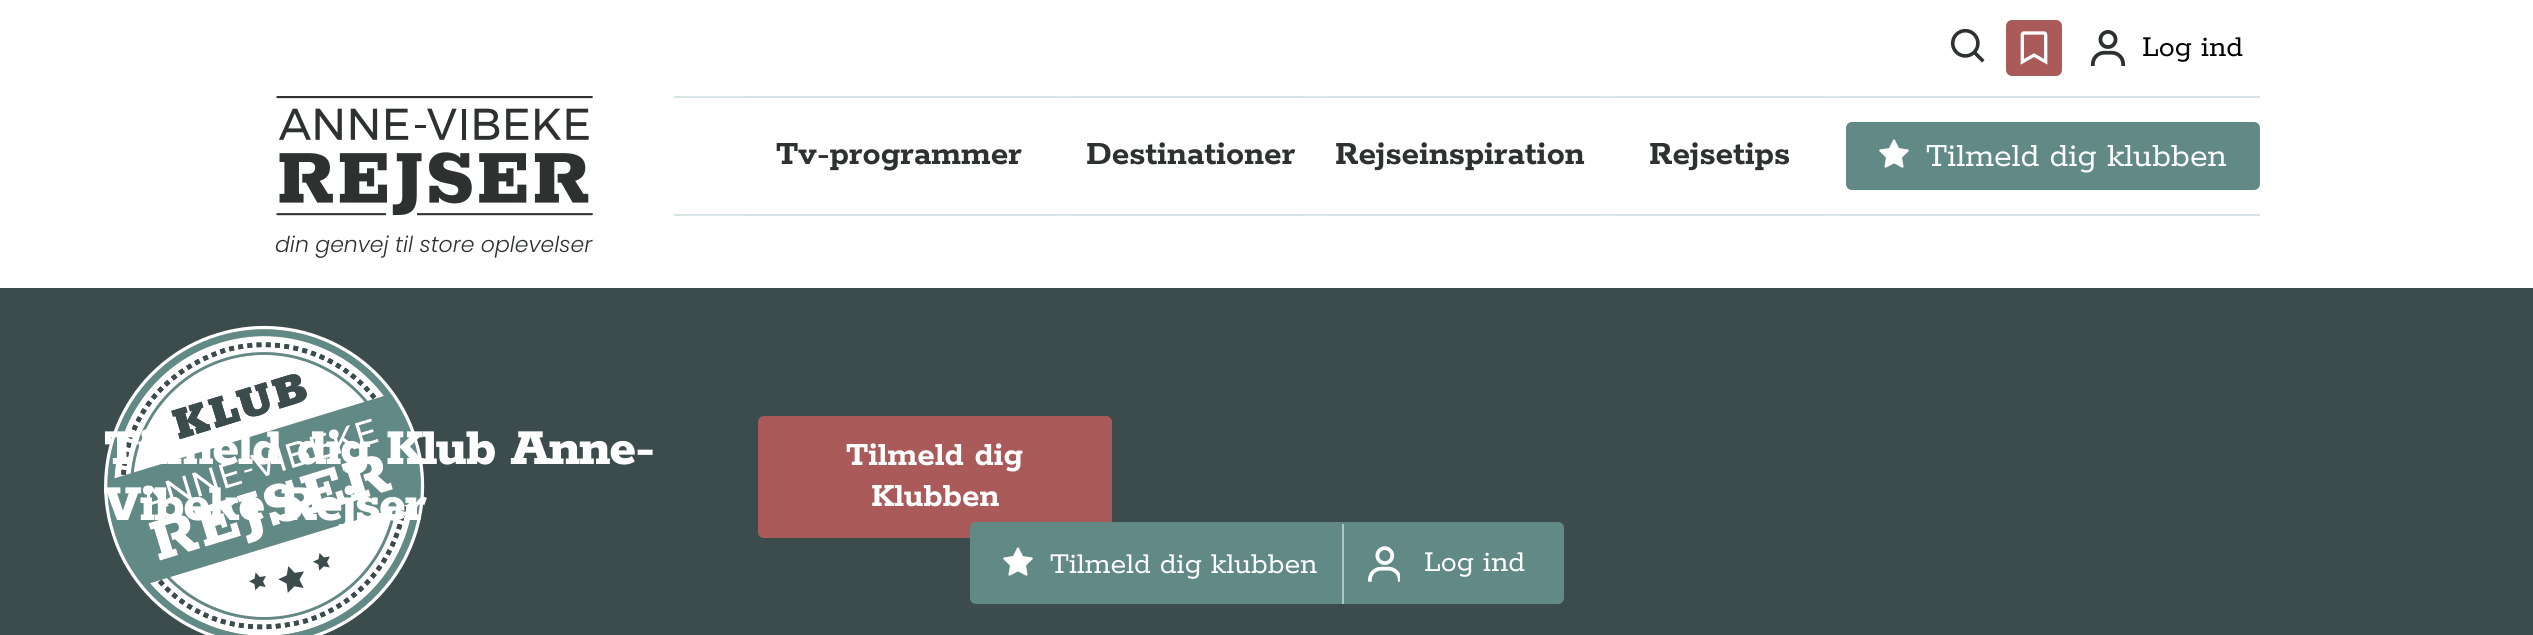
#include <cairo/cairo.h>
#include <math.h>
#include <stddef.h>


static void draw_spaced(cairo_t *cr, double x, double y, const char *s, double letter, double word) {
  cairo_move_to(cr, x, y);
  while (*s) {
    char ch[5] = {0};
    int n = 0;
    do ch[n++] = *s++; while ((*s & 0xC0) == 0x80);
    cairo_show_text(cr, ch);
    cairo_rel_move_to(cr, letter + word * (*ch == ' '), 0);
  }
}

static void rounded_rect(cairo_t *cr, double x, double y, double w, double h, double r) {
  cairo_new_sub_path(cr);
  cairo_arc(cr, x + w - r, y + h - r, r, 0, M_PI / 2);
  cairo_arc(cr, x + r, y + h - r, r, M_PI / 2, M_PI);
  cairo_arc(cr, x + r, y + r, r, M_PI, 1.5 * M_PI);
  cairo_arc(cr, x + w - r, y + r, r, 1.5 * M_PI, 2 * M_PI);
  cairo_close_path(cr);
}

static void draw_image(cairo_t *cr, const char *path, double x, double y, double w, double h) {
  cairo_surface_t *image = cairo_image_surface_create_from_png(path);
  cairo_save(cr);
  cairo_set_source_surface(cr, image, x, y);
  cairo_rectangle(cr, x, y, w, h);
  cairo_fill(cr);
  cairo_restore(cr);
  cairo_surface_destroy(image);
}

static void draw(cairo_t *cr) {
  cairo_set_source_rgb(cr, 60 / 255.0, 75 / 255.0, 76 / 255.0);
  cairo_paint(cr);
  cairo_set_source_rgb(cr, 1, 1, 1);
  cairo_rectangle(cr, 0, 0, 2533, 288);
  cairo_fill(cr);
  draw_image(cr, "images/1.png", 1950, 28, 35, 35);
  cairo_set_source_rgb(cr, 171 / 255.0, 90 / 255.0, 90 / 255.0);
  rounded_rect(cr, 2006, 20, 56, 56, 6);
  cairo_fill(cr);
  draw_image(cr, "images/2.png", 2020, 31, 28, 34);
  draw_image(cr, "images/3.png", 2090, 30, 36, 36);
  cairo_set_source_rgb(cr, 218 / 255.0, 229 / 255.0, 232 / 255.0);
  cairo_rectangle(cr, 674, 96, 1172, 2);
  cairo_fill(cr);
  cairo_rectangle(cr, 674, 214, 1172, 2);
  cairo_fill(cr);
  cairo_set_source_rgb(cr, 213 / 255.0, 227 / 255.0, 228 / 255.0);
  cairo_rectangle(cr, 744, 96, 310, 2);
  cairo_fill(cr);
  cairo_rectangle(cr, 744, 214, 310, 2);
  cairo_fill(cr);
  cairo_rectangle(cr, 1078, 96, 226, 2);
  cairo_fill(cr);
  cairo_rectangle(cr, 1078, 214, 226, 2);
  cairo_fill(cr);
  cairo_rectangle(cr, 1328, 96, 266, 2);
  cairo_fill(cr);
  cairo_rectangle(cr, 1328, 214, 266, 2);
  cairo_fill(cr);
  cairo_rectangle(cr, 1618, 96, 204, 2);
  cairo_fill(cr);
  cairo_rectangle(cr, 1618, 214, 204, 2);
  cairo_fill(cr);
  cairo_rectangle(cr, 1846, 96, 414, 2);
  cairo_fill(cr);
  cairo_rectangle(cr, 1846, 214, 414, 2);
  cairo_fill(cr);
  cairo_set_source_rgb(cr, 97 / 255.0, 137 / 255.0, 133 / 255.0);
  rounded_rect(cr, 1846, 122, 414, 68, 6);
  cairo_fill(cr);
  draw_image(cr, "images/4.png", 1879, 139, 30, 29);
  draw_image(cr, "images/5.png", 276, 96, 317, 120);
  draw_image(cr, "images/6.png", 104, 325, 321, 310);
  cairo_set_source_rgb(cr, 171 / 255.0, 90 / 255.0, 90 / 255.0);
  rounded_rect(cr, 758, 416, 354, 122, 6);
  cairo_fill(cr);
  cairo_set_source_rgb(cr, 97 / 255.0, 137 / 255.0, 133 / 255.0);
  rounded_rect(cr, 970, 522, 594, 82, 6);
  cairo_fill(cr);
  draw_image(cr, "images/4.png", 1003, 547, 30, 29);
  cairo_set_source_rgb(cr, 176 / 255.0, 196 / 255.0, 194 / 255.0);
  cairo_rectangle(cr, 1342, 524, 2, 80);
  cairo_fill(cr);
  draw_image(cr, "images/7.png", 1368, 546, 32, 36);
  cairo_select_font_face(cr, "Rokkitt", CAIRO_FONT_SLANT_NORMAL, CAIRO_FONT_WEIGHT_NORMAL);
  cairo_set_font_size(cr, 32);
  cairo_set_source_rgb(cr, 0, 0, 0);
  cairo_move_to(cr, 2142, 56);
  cairo_show_text(cr, "Log ind");
  cairo_select_font_face(cr, "Rokkitt", CAIRO_FONT_SLANT_NORMAL, CAIRO_FONT_WEIGHT_BOLD);
  cairo_set_font_size(cr, 36);
  cairo_set_source_rgb(cr, 45 / 255.0, 49 / 255.0, 48 / 255.0);
  cairo_move_to(cr, 776, 164);
  cairo_show_text(cr, "Tv-programmer");
  cairo_move_to(cr, 1086, 164);
  cairo_show_text(cr, "Destinationer");
  cairo_move_to(cr, 1335, 164);
  cairo_show_text(cr, "Rejseinspiration");
  cairo_move_to(cr, 1649, 164);
  cairo_show_text(cr, "Rejsetips");
  cairo_select_font_face(cr, "Rokkitt", CAIRO_FONT_SLANT_NORMAL, CAIRO_FONT_WEIGHT_NORMAL);
  cairo_set_source_rgb(cr, 1, 1, 1);
  cairo_move_to(cr, 1926, 166);
  cairo_show_text(cr, "Tilmeld dig klubben");
  cairo_select_font_face(cr, "Poppins Light", CAIRO_FONT_SLANT_ITALIC, CAIRO_FONT_WEIGHT_NORMAL);
  cairo_set_font_size(cr, 22);
  cairo_set_source_rgb(cr, 45 / 255.0, 49 / 255.0, 48 / 255.0);
  cairo_move_to(cr, 275, 252);
  cairo_show_text(cr, "din genvej til store oplevelser");
  cairo_select_font_face(cr, "Rokkitt ExtraBold", CAIRO_FONT_SLANT_NORMAL, CAIRO_FONT_WEIGHT_NORMAL);
  cairo_set_font_size(cr, 56);
  cairo_set_source_rgb(cr, 1, 1, 1);
  draw_spaced(cr, 104, 464, "Tilmeld dig Klub Anne-", -1.4, 0);
  draw_spaced(cr, 104, 520, "Vibeke Rejser", -1.4, 0);
  cairo_select_font_face(cr, "Rokkitt", CAIRO_FONT_SLANT_NORMAL, CAIRO_FONT_WEIGHT_BOLD);
  cairo_set_font_size(cr, 36);
  cairo_move_to(cr, 846, 465);
  cairo_show_text(cr, "Tilmeld dig");
  cairo_move_to(cr, 871, 506);
  cairo_show_text(cr, "Klubben");
  cairo_select_font_face(cr, "Rokkitt", CAIRO_FONT_SLANT_NORMAL, CAIRO_FONT_WEIGHT_NORMAL);
  cairo_set_font_size(cr, 32);
  cairo_move_to(cr, 1050, 573);
  cairo_show_text(cr, "Tilmeld dig klubben");
  cairo_move_to(cr, 1424, 571);
  cairo_show_text(cr, "Log ind");
}

int main(void) {
  cairo_surface_t *surface = cairo_image_surface_create(CAIRO_FORMAT_RGB24, 2533, 635);
  cairo_t *cr = cairo_create(surface);
  cairo_font_options_t *options = cairo_font_options_create();
  cairo_font_options_set_hint_metrics(options, CAIRO_HINT_METRICS_OFF);
  cairo_font_options_set_hint_style(options, CAIRO_HINT_STYLE_NONE);
  cairo_set_font_options(cr, options);
  cairo_set_miter_limit(cr, 4);
  draw(cr);
  cairo_surface_write_to_png(surface, "out.png");
  cairo_font_options_destroy(options);
  cairo_destroy(cr);
  cairo_surface_destroy(surface);
  return 0;
}
